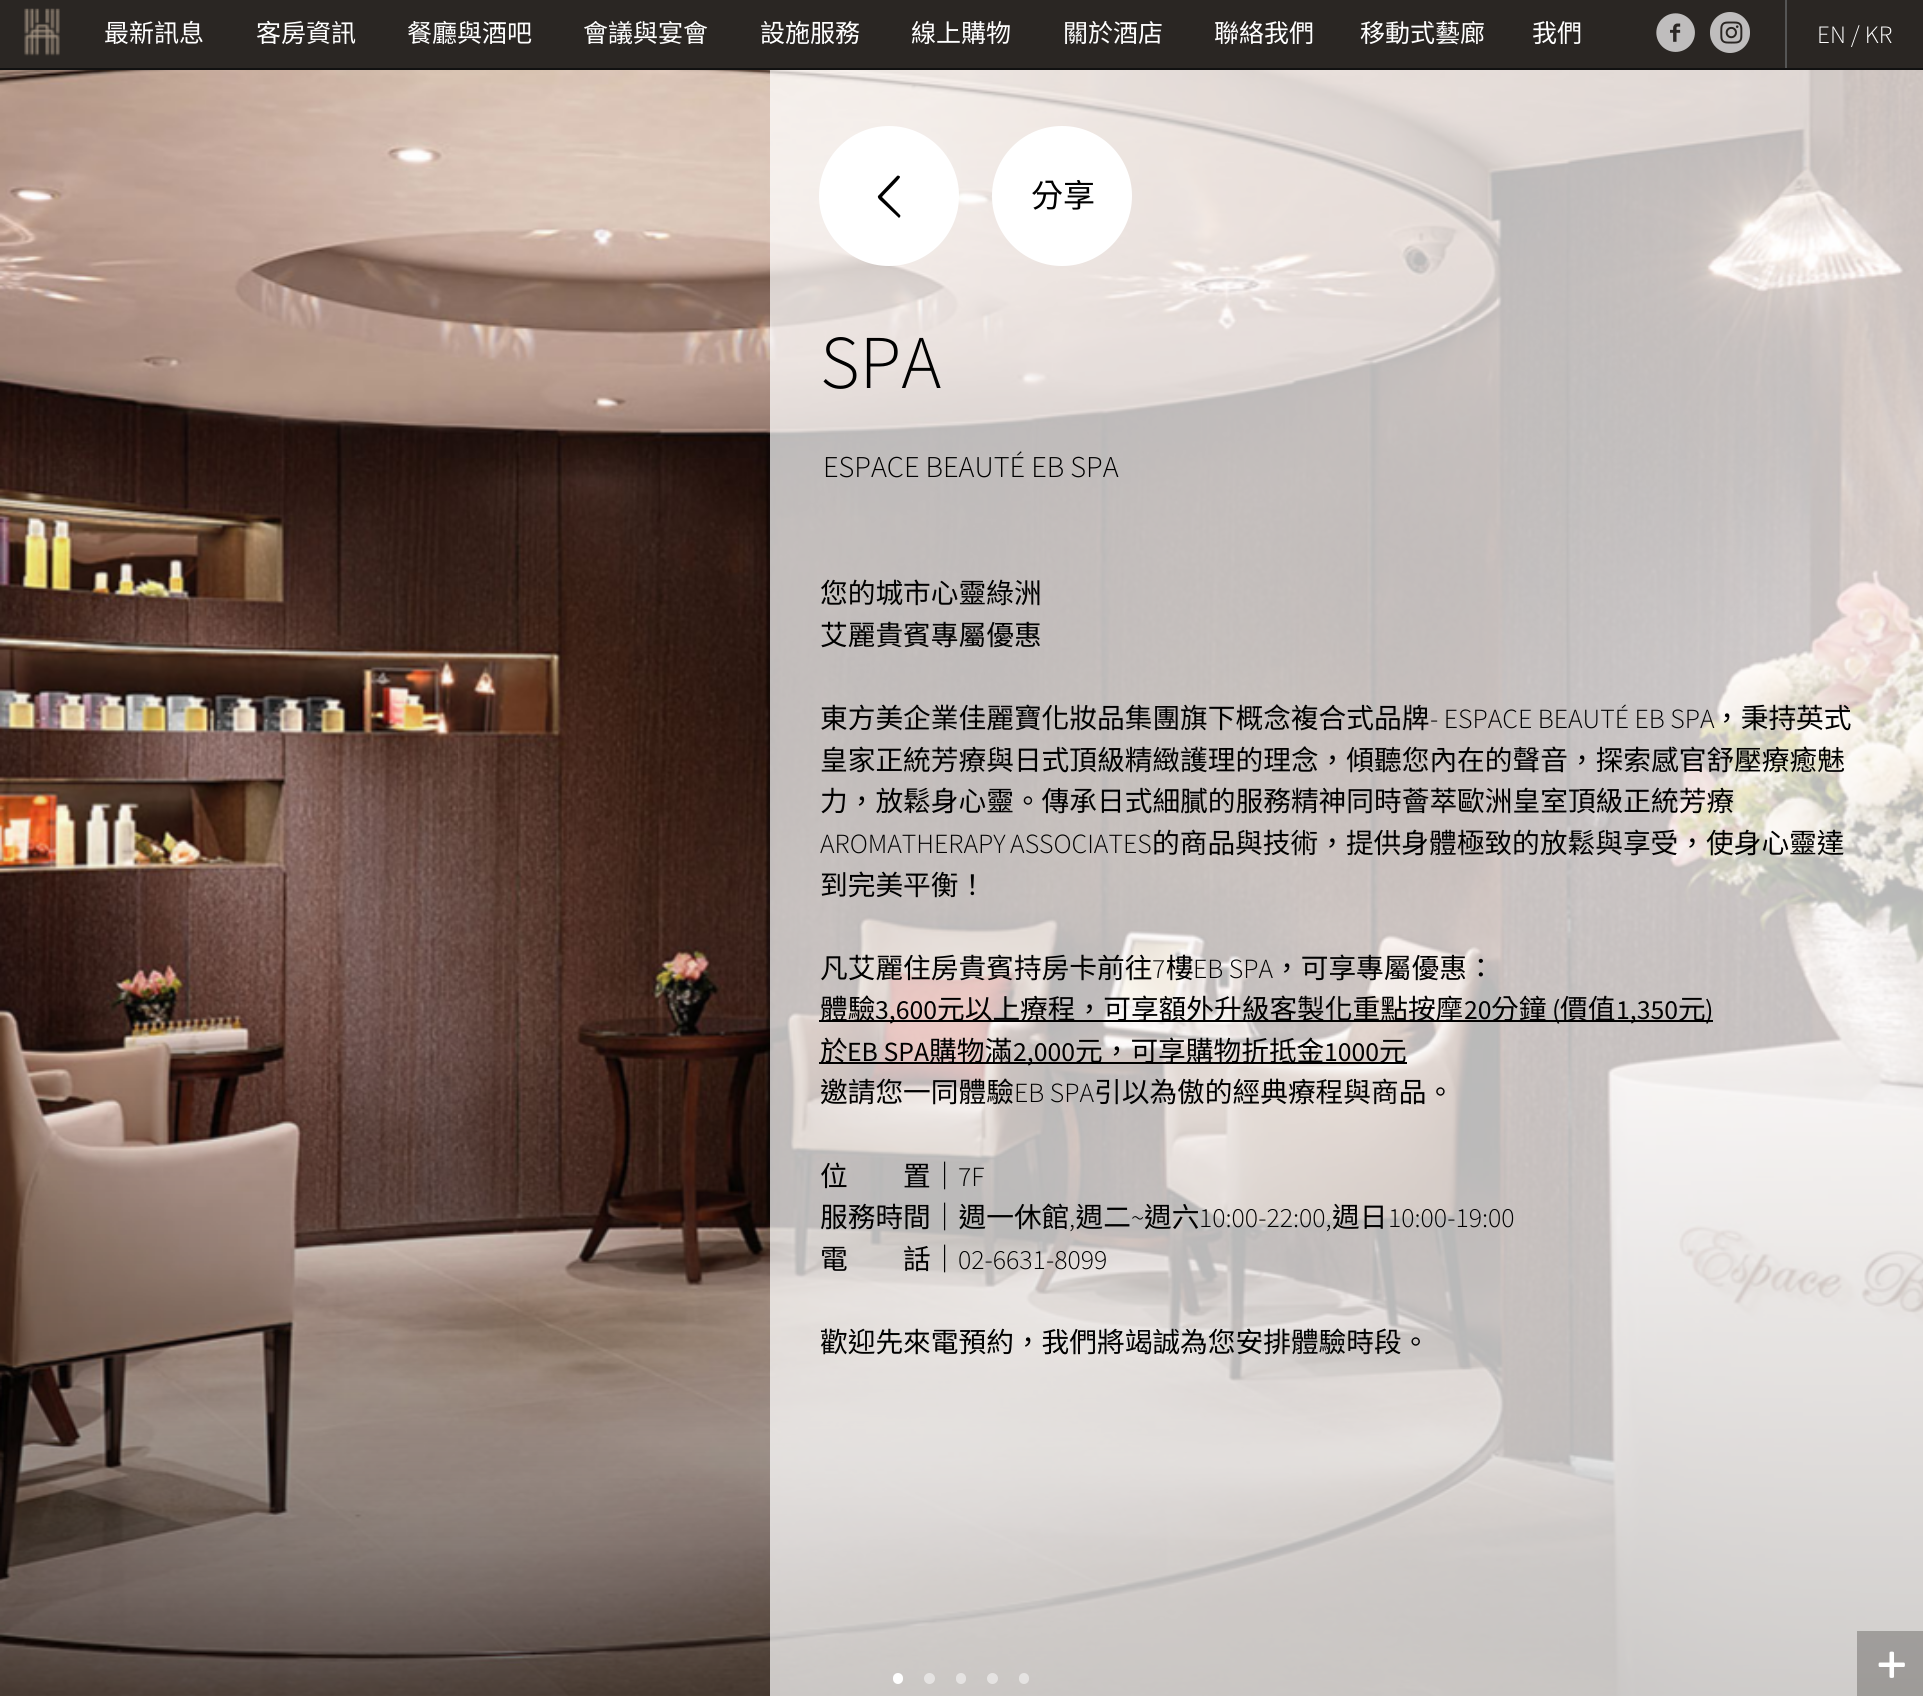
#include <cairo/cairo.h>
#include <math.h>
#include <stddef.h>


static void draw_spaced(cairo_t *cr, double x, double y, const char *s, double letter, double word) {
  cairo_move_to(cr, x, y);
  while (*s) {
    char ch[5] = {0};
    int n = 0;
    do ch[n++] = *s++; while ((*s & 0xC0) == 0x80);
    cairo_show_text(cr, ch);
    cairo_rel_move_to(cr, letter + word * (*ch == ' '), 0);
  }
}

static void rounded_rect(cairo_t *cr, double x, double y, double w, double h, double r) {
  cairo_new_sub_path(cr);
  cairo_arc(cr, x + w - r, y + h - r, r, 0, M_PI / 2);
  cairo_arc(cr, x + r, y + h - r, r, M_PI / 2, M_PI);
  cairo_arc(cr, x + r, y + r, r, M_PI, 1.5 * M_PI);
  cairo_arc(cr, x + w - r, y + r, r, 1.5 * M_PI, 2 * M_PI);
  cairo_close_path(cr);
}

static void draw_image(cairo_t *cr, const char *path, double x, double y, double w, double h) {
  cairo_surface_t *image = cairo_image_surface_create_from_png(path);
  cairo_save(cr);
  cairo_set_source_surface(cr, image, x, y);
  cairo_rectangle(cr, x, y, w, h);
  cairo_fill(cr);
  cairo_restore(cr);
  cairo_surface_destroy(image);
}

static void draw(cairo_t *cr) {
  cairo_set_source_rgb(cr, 1, 1, 1);
  cairo_paint(cr);
  cairo_set_source_rgb(cr, 42 / 255.0, 38 / 255.0, 35 / 255.0);
  cairo_rectangle(cr, 0, 0, 1923, 68);
  cairo_fill(cr);
  cairo_set_source_rgb(cr, 17 / 255.0, 17 / 255.0, 17 / 255.0);
  cairo_rectangle(cr, 0, 68, 1923, 2);
  cairo_fill(cr);
  draw_image(cr, "images/1.png", 24, 8, 36, 48);
  draw_image(cr, "images/2.png", 1656, 13, 39, 39);
  cairo_set_source_rgb(cr, 191 / 255.0, 189 / 255.0, 189 / 255.0);
  rounded_rect(cr, 1710, 12, 40, 41, 20);
  cairo_fill(cr);
  draw_image(cr, "images/3.png", 1720, 21, 23, 23);
  cairo_set_source_rgb(cr, 85 / 255.0, 85 / 255.0, 85 / 255.0);
  cairo_rectangle(cr, 1785, 0, 2, 68);
  cairo_fill(cr);
  draw_image(cr, "images/4.png", 0, 1695, 1923, 1);
  draw_image(cr, "images/5.png", 0, 70, 1923, 1626);
  cairo_set_source_rgb(cr, 1, 1, 1);
  rounded_rect(cr, 893, 1673, 10, 11, 5);
  cairo_fill(cr);
  cairo_set_source_rgba(cr, 1, 1, 1, 0.5);
  cairo_arc(cr, 929.5, 1678.5, 5.5, 0, 2 * M_PI);
  cairo_fill(cr);
  rounded_rect(cr, 956, 1673, 10, 11, 5);
  cairo_fill(cr);
  cairo_arc(cr, 992.5, 1678.5, 5.5, 0, 2 * M_PI);
  cairo_fill(cr);
  rounded_rect(cr, 1019, 1673, 10, 11, 5);
  cairo_fill(cr);
  cairo_set_source_rgba(cr, 1, 1, 1, 0.72);
  cairo_rectangle(cr, 770, 70, 1153, 1626);
  cairo_fill(cr);
  cairo_set_source_rgb(cr, 1, 1, 1);
  cairo_arc(cr, 889, 196, 70, 0, 2 * M_PI);
  cairo_fill(cr);
  cairo_set_source_rgb(cr, 0, 0, 0);
  cairo_new_path(cr);
  cairo_move_to(cr, 900, 215);
  cairo_curve_to(cr, 901, 216, 900, 217, 899, 218);
  cairo_line_to(cr, 898, 217);
  cairo_line_to(cr, 881, 201);
  cairo_curve_to(cr, 881, 201, 877, 198, 878, 196);
  cairo_line_to(cr, 897, 176);
  cairo_curve_to(cr, 898, 175, 900, 176, 900, 177);
  cairo_curve_to(cr, 900, 179, 884, 194, 882, 197);
  cairo_close_path(cr);
  cairo_fill(cr);
  cairo_set_source_rgb(cr, 1, 1, 1);
  cairo_arc(cr, 1062, 196, 70, 0, 2 * M_PI);
  cairo_fill(cr);
  cairo_set_source_rgb(cr, 0, 0, 0);
  cairo_rectangle(cr, 819, 1020, 894, 2);
  cairo_fill(cr);
  cairo_rectangle(cr, 819, 1062, 588, 2);
  cairo_fill(cr);
  cairo_set_source_rgba(cr, 42 / 255.0, 38 / 255.0, 35 / 255.0, 0.3);
  cairo_rectangle(cr, 1857, 1631, 66, 65);
  cairo_fill(cr);
  draw_image(cr, "images/6.png", 1878, 1651, 27, 27);
  cairo_select_font_face(cr, "Noto Sans CJK TC", CAIRO_FONT_SLANT_NORMAL, CAIRO_FONT_WEIGHT_NORMAL);
  cairo_set_font_size(cr, 25);
  cairo_set_source_rgb(cr, 1, 1, 1);
  cairo_move_to(cr, 104, 42);
  cairo_show_text(cr, "最新訊息");
  cairo_move_to(cr, 256, 42);
  cairo_show_text(cr, "客房資訊");
  cairo_move_to(cr, 407, 42);
  cairo_show_text(cr, "餐廳與酒吧");
  cairo_move_to(cr, 583, 42);
  cairo_show_text(cr, "會議與宴會");
  cairo_move_to(cr, 760, 42);
  cairo_show_text(cr, "設施服務");
  cairo_move_to(cr, 911, 42);
  cairo_show_text(cr, "線上購物");
  cairo_move_to(cr, 1063, 42);
  cairo_show_text(cr, "關於酒店");
  cairo_move_to(cr, 1214, 42);
  cairo_show_text(cr, "聯絡我們");
  cairo_move_to(cr, 1360, 42);
  cairo_show_text(cr, "移動式藝廊");
  cairo_move_to(cr, 1532, 42);
  cairo_show_text(cr, "我們");
  cairo_select_font_face(cr, "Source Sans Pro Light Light", CAIRO_FONT_SLANT_NORMAL, CAIRO_FONT_WEIGHT_NORMAL);
  cairo_move_to(cr, 1817, 43);
  cairo_show_text(cr, "EN / KR");
  cairo_select_font_face(cr, "Noto Sans CJK TC", CAIRO_FONT_SLANT_NORMAL, CAIRO_FONT_WEIGHT_NORMAL);
  cairo_set_font_size(cr, 32);
  cairo_set_source_rgb(cr, 0, 0, 0);
  cairo_move_to(cr, 1031, 207);
  cairo_show_text(cr, "分享");
  cairo_select_font_face(cr, "Source Sans Pro Light Light", CAIRO_FONT_SLANT_NORMAL, CAIRO_FONT_WEIGHT_NORMAL);
  cairo_set_font_size(cr, 76);
  cairo_move_to(cr, 820, 388);
  cairo_show_text(cr, "SPA");
  cairo_set_font_size(cr, 30.25);
  cairo_move_to(cr, 823, 477);
  cairo_show_text(cr, "ESPACE BEAUTÉ EB SPA");
  cairo_select_font_face(cr, "Noto Sans CJK TC", CAIRO_FONT_SLANT_NORMAL, CAIRO_FONT_WEIGHT_NORMAL);
  cairo_set_font_size(cr, 27.7);
  cairo_move_to(cr, 820, 603);
  cairo_show_text(cr, "您的城市心靈綠洲");
  cairo_move_to(cr, 820, 645);
  cairo_show_text(cr, "艾麗貴賓專屬優惠");
  cairo_move_to(cr, 820, 728);
  cairo_show_text(cr, "東方美企業佳麗寶化妝品集團旗下概念複合式品牌");
  cairo_select_font_face(cr, "Source Sans Pro Light Light", CAIRO_FONT_SLANT_NORMAL, CAIRO_FONT_WEIGHT_NORMAL);
  cairo_move_to(cr, 1430, 728);
  cairo_show_text(cr, "- ESPACE BEAUTÉ EB SPA");
  cairo_select_font_face(cr, "Noto Sans CJK TC", CAIRO_FONT_SLANT_NORMAL, CAIRO_FONT_WEIGHT_NORMAL);
  cairo_move_to(cr, 1713, 728);
  cairo_show_text(cr, "，秉持英式");
  cairo_move_to(cr, 820, 770);
  cairo_show_text(cr, "皇家正統芳療與日式頂級精緻護理的理念，傾聽您內在的聲音，探索感官舒壓療癒魅");
  cairo_move_to(cr, 820, 811);
  cairo_show_text(cr, "力，放鬆身心靈。傳承日式細膩的服務精神同時薈萃歐洲皇室頂級正統芳療");
  cairo_select_font_face(cr, "Source Sans Pro Light Light", CAIRO_FONT_SLANT_NORMAL, CAIRO_FONT_WEIGHT_NORMAL);
  draw_spaced(cr, 820, 853, "AROMATHERAPY ASSOCIATES", 0, -1);
  cairo_select_font_face(cr, "Noto Sans CJK TC", CAIRO_FONT_SLANT_NORMAL, CAIRO_FONT_WEIGHT_NORMAL);
  cairo_move_to(cr, 1152, 853);
  cairo_show_text(cr, "的商品與技術，提供身體極致的放鬆與享受，使身心靈達");
  cairo_move_to(cr, 820, 895);
  cairo_show_text(cr, "到完美平衡！");
  cairo_move_to(cr, 820, 978);
  cairo_show_text(cr, "凡艾麗住房貴賓持房卡前往");
  cairo_select_font_face(cr, "Source Sans Pro Light Light", CAIRO_FONT_SLANT_NORMAL, CAIRO_FONT_WEIGHT_NORMAL);
  cairo_move_to(cr, 1152, 978);
  cairo_show_text(cr, "7");
  cairo_select_font_face(cr, "Noto Sans CJK TC", CAIRO_FONT_SLANT_NORMAL, CAIRO_FONT_WEIGHT_NORMAL);
  cairo_move_to(cr, 1166, 978);
  cairo_show_text(cr, "樓");
  cairo_select_font_face(cr, "Source Sans Pro Light Light", CAIRO_FONT_SLANT_NORMAL, CAIRO_FONT_WEIGHT_NORMAL);
  cairo_move_to(cr, 1193, 978);
  cairo_show_text(cr, "EB SPA");
  cairo_select_font_face(cr, "Noto Sans CJK TC", CAIRO_FONT_SLANT_NORMAL, CAIRO_FONT_WEIGHT_NORMAL);
  cairo_move_to(cr, 1273, 978);
  cairo_show_text(cr, "，可享專屬優惠：");
  cairo_move_to(cr, 820, 1019);
  cairo_show_text(cr, "體驗");
  cairo_select_font_face(cr, "Source Sans Pro", CAIRO_FONT_SLANT_NORMAL, CAIRO_FONT_WEIGHT_NORMAL);
  cairo_move_to(cr, 875, 1019);
  cairo_show_text(cr, "3,600");
  cairo_select_font_face(cr, "Noto Sans CJK TC", CAIRO_FONT_SLANT_NORMAL, CAIRO_FONT_WEIGHT_NORMAL);
  cairo_move_to(cr, 937, 1019);
  cairo_show_text(cr, "元以上療程，可享額外升級客製化重點按摩");
  cairo_select_font_face(cr, "Source Sans Pro", CAIRO_FONT_SLANT_NORMAL, CAIRO_FONT_WEIGHT_NORMAL);
  cairo_move_to(cr, 1464, 1019);
  cairo_show_text(cr, "20");
  cairo_select_font_face(cr, "Noto Sans CJK TC", CAIRO_FONT_SLANT_NORMAL, CAIRO_FONT_WEIGHT_NORMAL);
  cairo_move_to(cr, 1491, 1019);
  cairo_show_text(cr, "分鐘");
  cairo_select_font_face(cr, "Source Sans Pro", CAIRO_FONT_SLANT_NORMAL, CAIRO_FONT_WEIGHT_NORMAL);
  cairo_move_to(cr, 1552, 1019);
  cairo_show_text(cr, "(");
  cairo_select_font_face(cr, "Noto Sans CJK TC", CAIRO_FONT_SLANT_NORMAL, CAIRO_FONT_WEIGHT_NORMAL);
  cairo_move_to(cr, 1560, 1019);
  cairo_show_text(cr, "價值");
  cairo_select_font_face(cr, "Source Sans Pro", CAIRO_FONT_SLANT_NORMAL, CAIRO_FONT_WEIGHT_NORMAL);
  cairo_move_to(cr, 1616, 1019);
  cairo_show_text(cr, "1,350");
  cairo_select_font_face(cr, "Noto Sans CJK TC", CAIRO_FONT_SLANT_NORMAL, CAIRO_FONT_WEIGHT_NORMAL);
  cairo_move_to(cr, 1678, 1019);
  cairo_show_text(cr, "元");
  cairo_select_font_face(cr, "Source Sans Pro", CAIRO_FONT_SLANT_NORMAL, CAIRO_FONT_WEIGHT_NORMAL);
  cairo_move_to(cr, 1705, 1019);
  cairo_show_text(cr, ")");
  cairo_select_font_face(cr, "Noto Sans CJK TC", CAIRO_FONT_SLANT_NORMAL, CAIRO_FONT_WEIGHT_NORMAL);
  cairo_move_to(cr, 820, 1061);
  cairo_show_text(cr, "於");
  cairo_select_font_face(cr, "Source Sans Pro", CAIRO_FONT_SLANT_NORMAL, CAIRO_FONT_WEIGHT_NORMAL);
  cairo_move_to(cr, 847, 1061);
  cairo_show_text(cr, "EB SPA");
  cairo_select_font_face(cr, "Noto Sans CJK TC", CAIRO_FONT_SLANT_NORMAL, CAIRO_FONT_WEIGHT_NORMAL);
  cairo_move_to(cr, 929, 1061);
  cairo_show_text(cr, "購物滿");
  cairo_select_font_face(cr, "Source Sans Pro", CAIRO_FONT_SLANT_NORMAL, CAIRO_FONT_WEIGHT_NORMAL);
  cairo_move_to(cr, 1013, 1061);
  cairo_show_text(cr, "2,000");
  cairo_select_font_face(cr, "Noto Sans CJK TC", CAIRO_FONT_SLANT_NORMAL, CAIRO_FONT_WEIGHT_NORMAL);
  cairo_move_to(cr, 1075, 1061);
  cairo_show_text(cr, "元，可享購物折抵金");
  cairo_select_font_face(cr, "Source Sans Pro", CAIRO_FONT_SLANT_NORMAL, CAIRO_FONT_WEIGHT_NORMAL);
  cairo_move_to(cr, 1324, 1061);
  cairo_show_text(cr, "1000");
  cairo_select_font_face(cr, "Noto Sans CJK TC", CAIRO_FONT_SLANT_NORMAL, CAIRO_FONT_WEIGHT_NORMAL);
  cairo_move_to(cr, 1379, 1061);
  cairo_show_text(cr, "元");
  cairo_move_to(cr, 820, 1102);
  cairo_show_text(cr, "邀請您一同體驗");
  cairo_select_font_face(cr, "Source Sans Pro Light Light", CAIRO_FONT_SLANT_NORMAL, CAIRO_FONT_WEIGHT_NORMAL);
  cairo_move_to(cr, 1014, 1102);
  cairo_show_text(cr, "EB SPA");
  cairo_select_font_face(cr, "Noto Sans CJK TC", CAIRO_FONT_SLANT_NORMAL, CAIRO_FONT_WEIGHT_NORMAL);
  cairo_move_to(cr, 1094, 1102);
  cairo_show_text(cr, "引以為傲的經典療程與商品。");
  cairo_move_to(cr, 820, 1186);
  cairo_show_text(cr, "位　　置｜");
  cairo_select_font_face(cr, "Source Sans Pro Light Light", CAIRO_FONT_SLANT_NORMAL, CAIRO_FONT_WEIGHT_NORMAL);
  cairo_move_to(cr, 958, 1186);
  cairo_show_text(cr, "7F");
  cairo_select_font_face(cr, "Noto Sans CJK TC", CAIRO_FONT_SLANT_NORMAL, CAIRO_FONT_WEIGHT_NORMAL);
  cairo_move_to(cr, 820, 1227);
  cairo_show_text(cr, "服務時間｜週一休館 週二");
  cairo_select_font_face(cr, "Source Sans Pro Light Light", CAIRO_FONT_SLANT_NORMAL, CAIRO_FONT_WEIGHT_NORMAL);
  cairo_move_to(cr, 1131, 1227);
  cairo_show_text(cr, "~");
  cairo_select_font_face(cr, "Noto Sans CJK TC", CAIRO_FONT_SLANT_NORMAL, CAIRO_FONT_WEIGHT_NORMAL);
  cairo_move_to(cr, 1144, 1227);
  cairo_show_text(cr, "週六");
  cairo_select_font_face(cr, "Source Sans Pro Light Light", CAIRO_FONT_SLANT_NORMAL, CAIRO_FONT_WEIGHT_NORMAL);
  cairo_move_to(cr, 1199, 1227);
  cairo_show_text(cr, "10:00-22:00,");
  cairo_select_font_face(cr, "Noto Sans CJK TC", CAIRO_FONT_SLANT_NORMAL, CAIRO_FONT_WEIGHT_NORMAL);
  cairo_move_to(cr, 1332, 1227);
  cairo_show_text(cr, "週日");
  cairo_select_font_face(cr, "Source Sans Pro Light Light", CAIRO_FONT_SLANT_NORMAL, CAIRO_FONT_WEIGHT_NORMAL);
  cairo_move_to(cr, 1388, 1227);
  cairo_show_text(cr, "10:00-19:00");
  cairo_move_to(cr, 1069, 1227);
  cairo_show_text(cr, ",");
  cairo_select_font_face(cr, "Noto Sans CJK TC", CAIRO_FONT_SLANT_NORMAL, CAIRO_FONT_WEIGHT_NORMAL);
  cairo_move_to(cr, 820, 1269);
  cairo_show_text(cr, "電　　話｜");
  cairo_select_font_face(cr, "Source Sans Pro Light Light", CAIRO_FONT_SLANT_NORMAL, CAIRO_FONT_WEIGHT_NORMAL);
  cairo_move_to(cr, 958, 1269);
  cairo_show_text(cr, "02-6631-8099");
  cairo_select_font_face(cr, "Noto Sans CJK TC", CAIRO_FONT_SLANT_NORMAL, CAIRO_FONT_WEIGHT_NORMAL);
  cairo_move_to(cr, 820, 1352);
  cairo_show_text(cr, "歡迎先來電預約，我們將竭誠為您安排體驗時段。");
}

int main(void) {
  cairo_surface_t *surface = cairo_image_surface_create(CAIRO_FORMAT_RGB24, 1923, 1696);
  cairo_t *cr = cairo_create(surface);
  cairo_font_options_t *options = cairo_font_options_create();
  cairo_font_options_set_hint_metrics(options, CAIRO_HINT_METRICS_OFF);
  cairo_font_options_set_hint_style(options, CAIRO_HINT_STYLE_NONE);
  cairo_set_font_options(cr, options);
  cairo_set_miter_limit(cr, 4);
  draw(cr);
  cairo_surface_write_to_png(surface, "out.png");
  cairo_font_options_destroy(options);
  cairo_destroy(cr);
  cairo_surface_destroy(surface);
  return 0;
}
